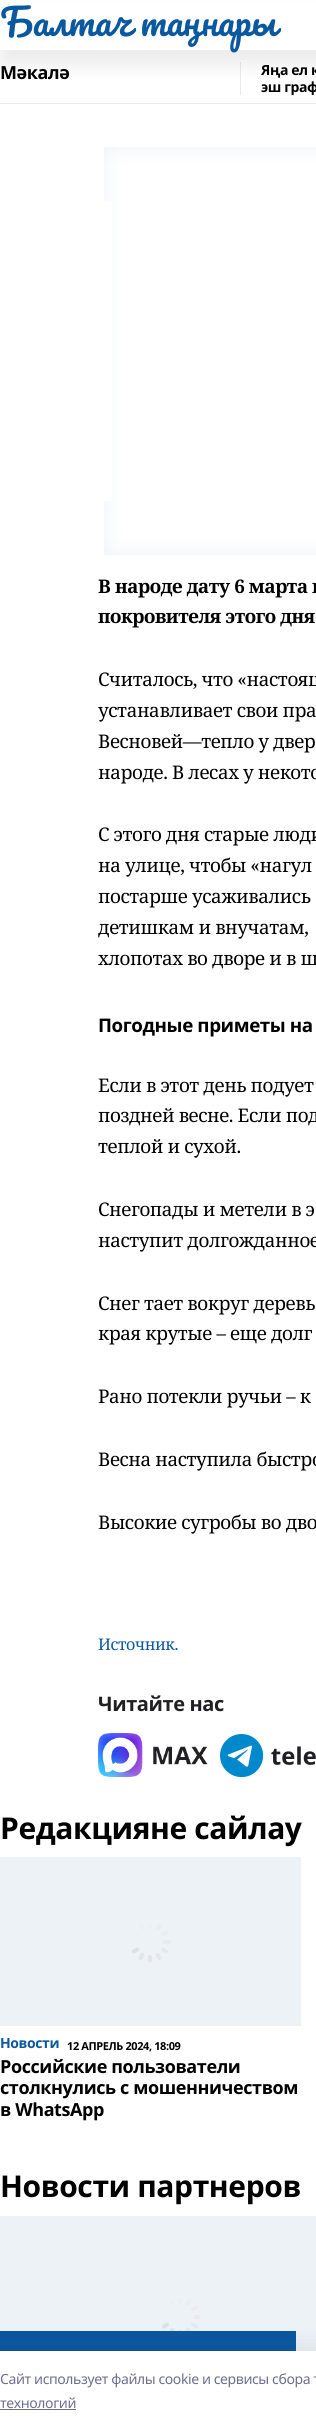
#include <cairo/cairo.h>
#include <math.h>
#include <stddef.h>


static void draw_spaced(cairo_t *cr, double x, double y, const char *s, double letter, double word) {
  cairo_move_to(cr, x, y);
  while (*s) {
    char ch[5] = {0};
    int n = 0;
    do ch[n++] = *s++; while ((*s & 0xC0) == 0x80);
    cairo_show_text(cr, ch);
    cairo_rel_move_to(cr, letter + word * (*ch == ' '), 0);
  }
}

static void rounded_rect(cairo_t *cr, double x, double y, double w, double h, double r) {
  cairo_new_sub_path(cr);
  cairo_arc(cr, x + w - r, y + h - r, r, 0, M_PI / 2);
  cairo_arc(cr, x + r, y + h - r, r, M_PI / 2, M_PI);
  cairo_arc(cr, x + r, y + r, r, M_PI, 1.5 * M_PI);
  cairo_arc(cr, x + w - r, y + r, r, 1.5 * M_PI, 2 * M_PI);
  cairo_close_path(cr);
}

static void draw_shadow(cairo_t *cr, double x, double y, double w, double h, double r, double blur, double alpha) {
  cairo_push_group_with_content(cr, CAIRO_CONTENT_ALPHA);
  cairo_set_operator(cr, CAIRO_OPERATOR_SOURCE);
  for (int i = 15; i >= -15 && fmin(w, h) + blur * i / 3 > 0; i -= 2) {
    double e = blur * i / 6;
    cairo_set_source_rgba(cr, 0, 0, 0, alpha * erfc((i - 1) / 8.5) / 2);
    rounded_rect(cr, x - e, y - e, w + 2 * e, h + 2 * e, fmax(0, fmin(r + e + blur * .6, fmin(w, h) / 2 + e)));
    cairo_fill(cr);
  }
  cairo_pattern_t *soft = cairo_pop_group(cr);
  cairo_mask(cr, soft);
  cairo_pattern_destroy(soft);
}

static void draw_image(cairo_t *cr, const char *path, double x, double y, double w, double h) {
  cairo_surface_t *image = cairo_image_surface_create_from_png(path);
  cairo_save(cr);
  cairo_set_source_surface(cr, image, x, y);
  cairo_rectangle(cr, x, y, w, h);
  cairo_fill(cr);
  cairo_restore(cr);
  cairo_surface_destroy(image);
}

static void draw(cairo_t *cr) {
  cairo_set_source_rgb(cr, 1, 1, 1);
  cairo_paint(cr);
  cairo_set_source_rgb(cr, 234 / 255.0, 234 / 255.0, 234 / 255.0);
  cairo_rectangle(cr, 240, 62, 1, 33);
  cairo_fill(cr);
  cairo_set_source_rgb(cr, 0, 0, 0);
  draw_shadow(cr, 0, 15, 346, 50, 0, 10, 0.08);
  cairo_set_source_rgb(cr, 1, 1, 1);
  cairo_rectangle(cr, 0, 4, 316, 46);
  cairo_fill(cr);
  cairo_set_source_rgb(cr, 234 / 255.0, 234 / 255.0, 234 / 255.0);
  cairo_rectangle(cr, 0, 103, 316, 1);
  cairo_fill(cr);
  cairo_set_source_rgb(cr, 237 / 255.0, 242 / 255.0, 247 / 255.0);
  cairo_rectangle(cr, 104, 147, 212, 408);
  cairo_fill(cr);
  draw_image(cr, "images/1.png", 104, 147, 212, 408);
  cairo_set_source_rgb(cr, 1, 1, 1);
  cairo_rectangle(cr, 104, 201, 8, 300);
  cairo_fill(cr);
  draw_image(cr, "images/2.png", 98, 1733, 110, 44);
  draw_image(cr, "images/3.png", 220, 1734, 96, 43);
  cairo_set_source_rgb(cr, 237 / 255.0, 242 / 255.0, 247 / 255.0);
  cairo_rectangle(cr, 0, 1857, 301, 169);
  cairo_fill(cr);
  draw_image(cr, "images/4.png", 132, 1924, 39, 39);
  cairo_rectangle(cr, 0, 2216, 316, 135);
  cairo_fill(cr);
  draw_image(cr, "images/5.png", 162, 2299, 39, 32);
  cairo_set_source_rgb(cr, 10 / 255.0, 88 / 255.0, 160 / 255.0);
  cairo_rectangle(cr, 0, 2331, 296, 20);
  cairo_fill(cr);
  cairo_set_source_rgb(cr, 20 / 255.0, 20 / 255.0, 43 / 255.0);
  draw_shadow(cr, 0, 2345, 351, 80, 0, 11.5, 0.08);
  cairo_set_source_rgb(cr, 1, 1, 1);
  cairo_rectangle(cr, 0, 2351, 316, 80);
  cairo_fill(cr);
  cairo_set_source_rgb(cr, 111 / 255.0, 108 / 255.0, 144 / 255.0);
  cairo_rectangle(cr, 0, 2409, 76, 1);
  cairo_fill(cr);
  cairo_select_font_face(cr, "Pacifico", CAIRO_FONT_SLANT_NORMAL, CAIRO_FONT_WEIGHT_NORMAL);
  cairo_set_font_size(cr, 36);
  cairo_set_source_rgb(cr, 10 / 255.0, 88 / 255.0, 160 / 255.0);
  draw_spaced(cr, 0, 36, "Балтач таңнары", -0.4, 0);
  cairo_select_font_face(cr, "Noto Sans", CAIRO_FONT_SLANT_NORMAL, CAIRO_FONT_WEIGHT_BOLD);
  cairo_set_font_size(cr, 18);
  cairo_set_source_rgb(cr, 0, 0, 0);
  draw_spaced(cr, 0, 79, "Мәкалә", -0.4, 0);
  cairo_set_font_size(cr, 14);
  draw_spaced(cr, 261, 75, "Яңа ел к", -0.4, 0);
  cairo_save(cr);
  cairo_rectangle(cr, 241, 62, 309, 33);
  cairo_clip(cr);
  draw_spaced(cr, 261, 92, "эш граф", -0.4, 0);
  cairo_restore(cr);
  cairo_select_font_face(cr, "Noto Serif", CAIRO_FONT_SLANT_NORMAL, CAIRO_FONT_WEIGHT_BOLD);
  cairo_set_font_size(cr, 18.75);
  draw_spaced(cr, 98, 593, "В народе дату 6 марта в", -0.4, 0);
  draw_spaced(cr, 98, 623, "покровителя этого дня", -0.4, 0);
  cairo_select_font_face(cr, "Noto Serif", CAIRO_FONT_SLANT_NORMAL, CAIRO_FONT_WEIGHT_NORMAL);
  draw_spaced(cr, 98, 686, "Считалось, что «настоящ", -0.4, 0);
  draw_spaced(cr, 98, 717, "устанавливает свои пра", -0.4, 0);
  draw_spaced(cr, 98, 748, "Весновей—тепло у двер", -0.4, 0);
  draw_spaced(cr, 98, 779, "народе. В лесах у некото", -0.4, 0);
  draw_spaced(cr, 98, 841, "С этого дня старые люди", -0.4, 0);
  draw_spaced(cr, 98, 872, "на улице, чтобы «нагул", -0.4, 0);
  draw_spaced(cr, 98, 903, "постарше усаживались", -0.4, 0);
  draw_spaced(cr, 98, 934, "детишкам и внучатам,", -0.4, 0);
  draw_spaced(cr, 98, 965, "хлопотах во дворе и в ш", -0.4, 0);
  cairo_select_font_face(cr, "Noto Sans", CAIRO_FONT_SLANT_NORMAL, CAIRO_FONT_WEIGHT_BOLD);
  draw_spaced(cr, 98, 1032, "Погодные приметы на", -0.4, 0);
  cairo_select_font_face(cr, "Noto Serif", CAIRO_FONT_SLANT_NORMAL, CAIRO_FONT_WEIGHT_NORMAL);
  draw_spaced(cr, 98, 1092, "Если в этот день подует", -0.4, 0);
  draw_spaced(cr, 98, 1122, "поздней весне. Если под", -0.4, 0);
  draw_spaced(cr, 98, 1153, "теплой и сухой.", -0.4, 0);
  draw_spaced(cr, 98, 1216, "Снегопады и метели в э", -0.4, 0);
  draw_spaced(cr, 98, 1247, "наступит долгожданное", -0.4, 0);
  draw_spaced(cr, 98, 1310, "Снег тает вокруг деревь", -0.4, 0);
  draw_spaced(cr, 98, 1340, "края крутые – еще долг", -0.4, 0);
  draw_spaced(cr, 98, 1403, "Рано потекли ручьи – к", -0.4, 0);
  draw_spaced(cr, 98, 1466, "Весна наступила быстро", -0.4, 0);
  draw_spaced(cr, 98, 1529, "Высокие сугробы во дво", -0.4, 0);
  cairo_set_font_size(cr, 16);
  cairo_set_source_rgb(cr, 10 / 255.0, 88 / 255.0, 160 / 255.0);
  draw_spaced(cr, 98, 1650, "Источник.", -0.4, 0);
  cairo_select_font_face(cr, "Noto Sans", CAIRO_FONT_SLANT_NORMAL, CAIRO_FONT_WEIGHT_BOLD);
  cairo_set_font_size(cr, 20);
  cairo_set_source_rgb(cr, 32 / 255.0, 32 / 255.0, 34 / 255.0);
  draw_spaced(cr, 98, 1711, "Читайте нас", -0.4, 0);
  cairo_set_font_size(cr, 30);
  cairo_set_source_rgb(cr, 0, 0, 0);
  draw_spaced(cr, 0, 1839, "Редакцияне сайлау", -0.4, 0);
  cairo_set_font_size(cr, 14);
  cairo_set_source_rgb(cr, 10 / 255.0, 88 / 255.0, 160 / 255.0);
  draw_spaced(cr, 0, 2048, "Новости", -0.4, 0);
  cairo_set_font_size(cr, 11);
  cairo_set_source_rgb(cr, 0, 0, 0);
  draw_spaced(cr, 67, 2050, "12 АПРЕЛЬ 2024, 18:09", -0.4, 0);
  cairo_set_font_size(cr, 18);
  draw_spaced(cr, 0, 2073, "Российские пользователи", -0.4, 0);
  draw_spaced(cr, 0, 2094, "столкнулись с мошенничеством", -0.4, 0);
  draw_spaced(cr, 0, 2116, "в WhatsApp", -0.4, 0);
  cairo_set_font_size(cr, 30);
  draw_spaced(cr, 0, 2197, "Новости партнеров", -0.4, 0);
  cairo_select_font_face(cr, "Noto Sans", CAIRO_FONT_SLANT_NORMAL, CAIRO_FONT_WEIGHT_NORMAL);
  cairo_set_font_size(cr, 14);
  cairo_set_source_rgb(cr, 111 / 255.0, 108 / 255.0, 144 / 255.0);
  draw_spaced(cr, 0, 2384, "Cайт использует файлы cookie и сервисы сбора т", -0.4, 0);
  draw_spaced(cr, 0, 2408, "технологий", -0.4, 0);
}

int main(void) {
  cairo_surface_t *surface = cairo_image_surface_create(CAIRO_FORMAT_RGB24, 316, 2431);
  cairo_t *cr = cairo_create(surface);
  cairo_font_options_t *options = cairo_font_options_create();
  cairo_font_options_set_hint_metrics(options, CAIRO_HINT_METRICS_OFF);
  cairo_font_options_set_hint_style(options, CAIRO_HINT_STYLE_NONE);
  cairo_set_font_options(cr, options);
  cairo_set_miter_limit(cr, 4);
  draw(cr);
  cairo_surface_write_to_png(surface, "out.png");
  cairo_font_options_destroy(options);
  cairo_destroy(cr);
  cairo_surface_destroy(surface);
  return 0;
}
